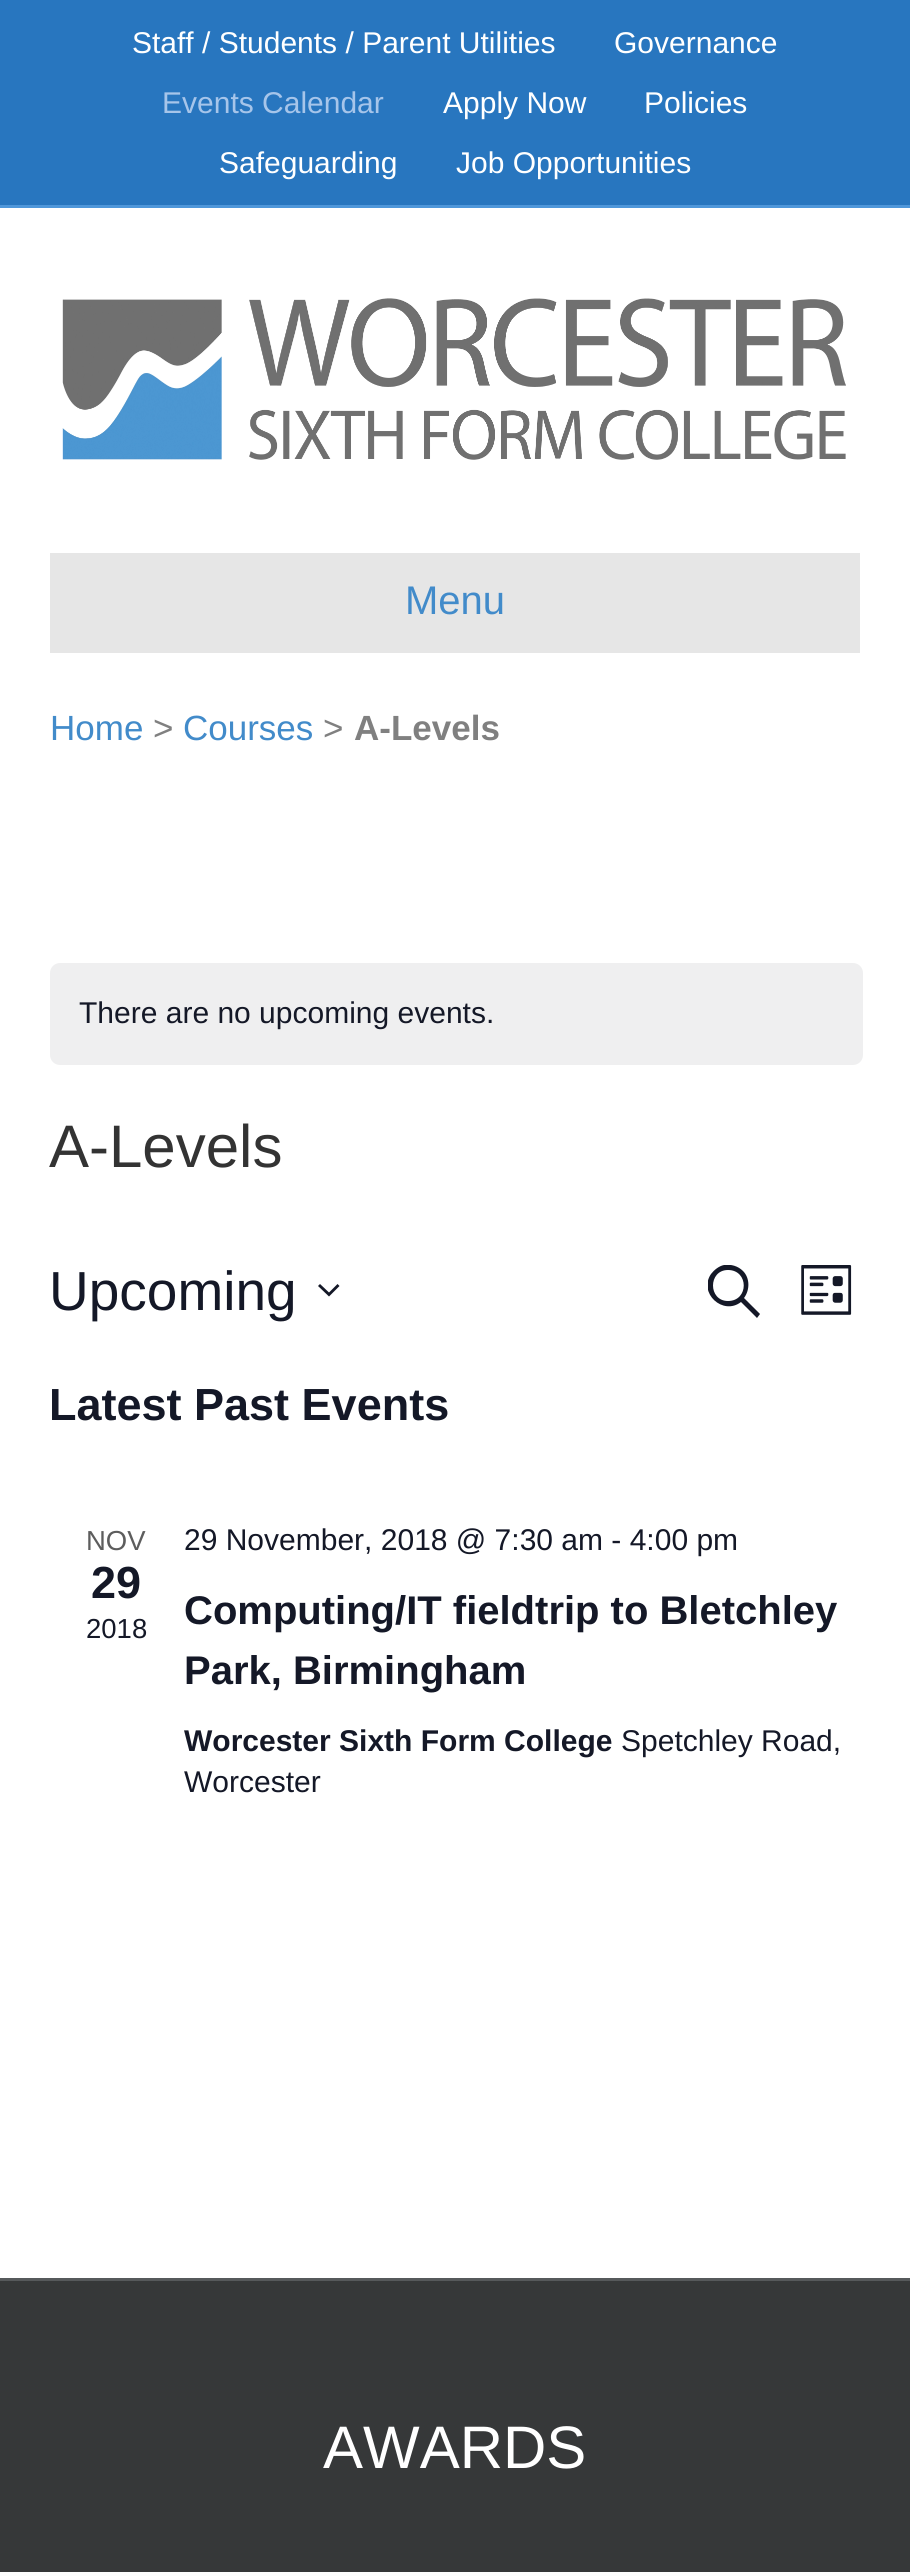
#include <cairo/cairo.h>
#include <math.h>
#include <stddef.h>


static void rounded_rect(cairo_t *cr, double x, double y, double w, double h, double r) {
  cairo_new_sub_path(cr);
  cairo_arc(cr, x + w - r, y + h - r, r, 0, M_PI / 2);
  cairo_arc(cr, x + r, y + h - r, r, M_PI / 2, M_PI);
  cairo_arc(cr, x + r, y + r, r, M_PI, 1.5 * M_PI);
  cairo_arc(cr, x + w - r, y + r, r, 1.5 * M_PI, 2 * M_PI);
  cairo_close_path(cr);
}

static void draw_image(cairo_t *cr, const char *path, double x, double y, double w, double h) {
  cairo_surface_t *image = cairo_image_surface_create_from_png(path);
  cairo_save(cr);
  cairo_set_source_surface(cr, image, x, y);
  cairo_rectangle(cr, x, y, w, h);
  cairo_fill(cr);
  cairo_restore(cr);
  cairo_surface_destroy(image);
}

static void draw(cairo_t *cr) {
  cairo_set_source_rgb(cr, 40 / 255.0, 118 / 255.0, 191 / 255.0);
  cairo_paint(cr);
  cairo_set_source_rgb(cr, 79 / 255.0, 151 / 255.0, 218 / 255.0);
  cairo_rectangle(cr, 0, 205, 910, 3);
  cairo_fill(cr);
  cairo_set_source_rgb(cr, 1, 1, 1);
  cairo_rectangle(cr, 0, 208, 910, 2070);
  cairo_fill(cr);
  draw_image(cr, "images/1.png", 62, 298, 784, 162);
  cairo_set_source_rgb(cr, 230 / 255.0, 230 / 255.0, 230 / 255.0);
  cairo_rectangle(cr, 50, 553, 810, 100);
  cairo_fill(cr);
  cairo_set_source_rgb(cr, 239 / 255.0, 239 / 255.0, 240 / 255.0);
  rounded_rect(cr, 50, 963, 813, 102, 10);
  cairo_fill(cr);
  cairo_set_source_rgb(cr, 20 / 255.0, 24 / 255.0, 39 / 255.0);
  cairo_set_fill_rule(cr, CAIRO_FILL_RULE_EVEN_ODD);
  cairo_new_path(cr);
  cairo_move_to(cr, 320, 1284);
  cairo_line_to(cr, 329, 1292.5);
  cairo_line_to(cr, 337.5, 1284);
  cairo_line_to(cr, 339.5, 1286);
  cairo_line_to(cr, 329, 1296.5);
  cairo_line_to(cr, 318, 1286);
  cairo_close_path(cr);
  cairo_fill(cr);
  cairo_save(cr);
  cairo_set_fill_rule(cr, CAIRO_FILL_RULE_WINDING);
  cairo_rectangle(cr, 708, 1265, 52, 53);
  cairo_clip(cr);
  cairo_set_fill_rule(cr, CAIRO_FILL_RULE_EVEN_ODD);
  cairo_new_path(cr);
  cairo_move_to(cr, 744, 1298);
  cairo_line_to(cr, 760, 1314);
  cairo_line_to(cr, 757, 1318);
  cairo_line_to(cr, 741, 1302);
  cairo_curve_to(cr, 723, 1316, 698, 1293, 711, 1274);
  cairo_curve_to(cr, 714, 1270, 719, 1266, 724, 1265);
  cairo_curve_to(cr, 731, 1264, 738, 1266, 743, 1271);
  cairo_curve_to(cr, 750, 1278, 750, 1290, 744, 1298);
  cairo_close_path(cr);
  cairo_move_to(cr, 728, 1270);
  cairo_curve_to(cr, 708, 1270, 708, 1301, 728, 1301);
  cairo_curve_to(cr, 749, 1301, 749, 1270, 728, 1270);
  cairo_close_path(cr);
  cairo_fill(cr);
  cairo_restore(cr);
  draw_image(cr, "images/2.png", 801, 1265, 51, 50);
  cairo_set_source_rgb(cr, 54 / 255.0, 56 / 255.0, 57 / 255.0);
  cairo_rectangle(cr, 0, 2281, 910, 291);
  cairo_fill(cr);
  cairo_set_source_rgb(cr, 86 / 255.0, 89 / 255.0, 91 / 255.0);
  cairo_rectangle(cr, 0, 2278, 910, 3);
  cairo_fill(cr);
  cairo_select_font_face(cr, "Liberation Sans", CAIRO_FONT_SLANT_NORMAL, CAIRO_FONT_WEIGHT_NORMAL);
  cairo_set_font_size(cr, 30);
  cairo_set_source_rgb(cr, 1, 1, 1);
  cairo_move_to(cr, 132, 53);
  cairo_show_text(cr, "Staff / Students / Parent Utilities");
  cairo_move_to(cr, 614, 53);
  cairo_show_text(cr, "Governance");
  cairo_set_source_rgb(cr, 166 / 255.0, 197 / 255.0, 234 / 255.0);
  cairo_move_to(cr, 162, 113);
  cairo_show_text(cr, "Events Calendar");
  cairo_set_source_rgb(cr, 1, 1, 1);
  cairo_move_to(cr, 443, 113);
  cairo_show_text(cr, "Apply Now");
  cairo_move_to(cr, 644, 113);
  cairo_show_text(cr, "Policies");
  cairo_move_to(cr, 219, 173);
  cairo_show_text(cr, "Safeguarding");
  cairo_move_to(cr, 456, 173);
  cairo_show_text(cr, "Job Opportunities");
  cairo_set_font_size(cr, 40);
  cairo_set_source_rgb(cr, 66 / 255.0, 139 / 255.0, 202 / 255.0);
  cairo_move_to(cr, 405, 614);
  cairo_show_text(cr, "Menu");
  cairo_set_font_size(cr, 35);
  cairo_move_to(cr, 50, 740);
  cairo_show_text(cr, "Home");
  cairo_set_source_rgb(cr, 128 / 255.0, 128 / 255.0, 128 / 255.0);
  cairo_move_to(cr, 153, 740);
  cairo_show_text(cr, ">");
  cairo_set_source_rgb(cr, 66 / 255.0, 139 / 255.0, 202 / 255.0);
  cairo_move_to(cr, 183, 740);
  cairo_show_text(cr, "Courses");
  cairo_set_source_rgb(cr, 128 / 255.0, 128 / 255.0, 128 / 255.0);
  cairo_move_to(cr, 323, 740);
  cairo_show_text(cr, ">");
  cairo_select_font_face(cr, "Liberation Sans", CAIRO_FONT_SLANT_NORMAL, CAIRO_FONT_WEIGHT_BOLD);
  cairo_move_to(cr, 354, 740);
  cairo_show_text(cr, "A-Levels");
  cairo_select_font_face(cr, "Liberation Sans", CAIRO_FONT_SLANT_NORMAL, CAIRO_FONT_WEIGHT_NORMAL);
  cairo_set_font_size(cr, 30);
  cairo_set_source_rgb(cr, 20 / 255.0, 24 / 255.0, 39 / 255.0);
  cairo_move_to(cr, 79, 1023);
  cairo_show_text(cr, "There are no upcoming events.");
  cairo_set_font_size(cr, 60);
  cairo_set_source_rgb(cr, 51 / 255.0, 51 / 255.0, 51 / 255.0);
  cairo_move_to(cr, 49, 1167);
  cairo_show_text(cr, "A-Levels");
  cairo_set_font_size(cr, 55);
  cairo_set_source_rgb(cr, 20 / 255.0, 24 / 255.0, 39 / 255.0);
  cairo_move_to(cr, 49, 1310);
  cairo_show_text(cr, "Upcoming");
  cairo_select_font_face(cr, "Liberation Sans", CAIRO_FONT_SLANT_NORMAL, CAIRO_FONT_WEIGHT_BOLD);
  cairo_set_font_size(cr, 45);
  cairo_move_to(cr, 49, 1420);
  cairo_show_text(cr, "Latest Past Events");
  cairo_select_font_face(cr, "Liberation Sans", CAIRO_FONT_SLANT_NORMAL, CAIRO_FONT_WEIGHT_NORMAL);
  cairo_set_font_size(cr, 27.5);
  cairo_set_source_rgb(cr, 93 / 255.0, 93 / 255.0, 93 / 255.0);
  cairo_move_to(cr, 86, 1550);
  cairo_show_text(cr, "NOV");
  cairo_select_font_face(cr, "Liberation Sans", CAIRO_FONT_SLANT_NORMAL, CAIRO_FONT_WEIGHT_BOLD);
  cairo_set_font_size(cr, 45);
  cairo_set_source_rgb(cr, 20 / 255.0, 24 / 255.0, 39 / 255.0);
  cairo_move_to(cr, 91, 1598);
  cairo_show_text(cr, "29");
  cairo_select_font_face(cr, "Liberation Sans", CAIRO_FONT_SLANT_NORMAL, CAIRO_FONT_WEIGHT_NORMAL);
  cairo_set_font_size(cr, 27.5);
  cairo_move_to(cr, 86, 1638);
  cairo_show_text(cr, "2018");
  cairo_set_font_size(cr, 30);
  cairo_move_to(cr, 184, 1550);
  cairo_show_text(cr, "29 November, 2018 @ 7:30 am - 4:00 pm");
  cairo_select_font_face(cr, "Liberation Sans", CAIRO_FONT_SLANT_NORMAL, CAIRO_FONT_WEIGHT_BOLD);
  cairo_set_font_size(cr, 40);
  cairo_move_to(cr, 184, 1624);
  cairo_show_text(cr, "Computing/IT fieldtrip to Bletchley");
  cairo_move_to(cr, 184, 1684);
  cairo_show_text(cr, "Park, Birmingham");
  cairo_set_font_size(cr, 30);
  cairo_move_to(cr, 184, 1751);
  cairo_show_text(cr, "Worcester Sixth Form College");
  cairo_select_font_face(cr, "Liberation Sans", CAIRO_FONT_SLANT_NORMAL, CAIRO_FONT_WEIGHT_NORMAL);
  cairo_move_to(cr, 621, 1751);
  cairo_show_text(cr, "Spetchley Road,");
  cairo_move_to(cr, 184, 1792);
  cairo_show_text(cr, "Worcester");
  cairo_set_font_size(cr, 60);
  cairo_set_source_rgb(cr, 1, 1, 1);
  cairo_move_to(cr, 323, 2468);
  cairo_show_text(cr, "AWARDS");
}

int main(void) {
  cairo_surface_t *surface = cairo_image_surface_create(CAIRO_FORMAT_RGB24, 910, 2572);
  cairo_t *cr = cairo_create(surface);
  cairo_font_options_t *options = cairo_font_options_create();
  cairo_font_options_set_hint_metrics(options, CAIRO_HINT_METRICS_OFF);
  cairo_font_options_set_hint_style(options, CAIRO_HINT_STYLE_NONE);
  cairo_set_font_options(cr, options);
  cairo_set_miter_limit(cr, 4);
  draw(cr);
  cairo_surface_write_to_png(surface, "out.png");
  cairo_font_options_destroy(options);
  cairo_destroy(cr);
  cairo_surface_destroy(surface);
  return 0;
}
